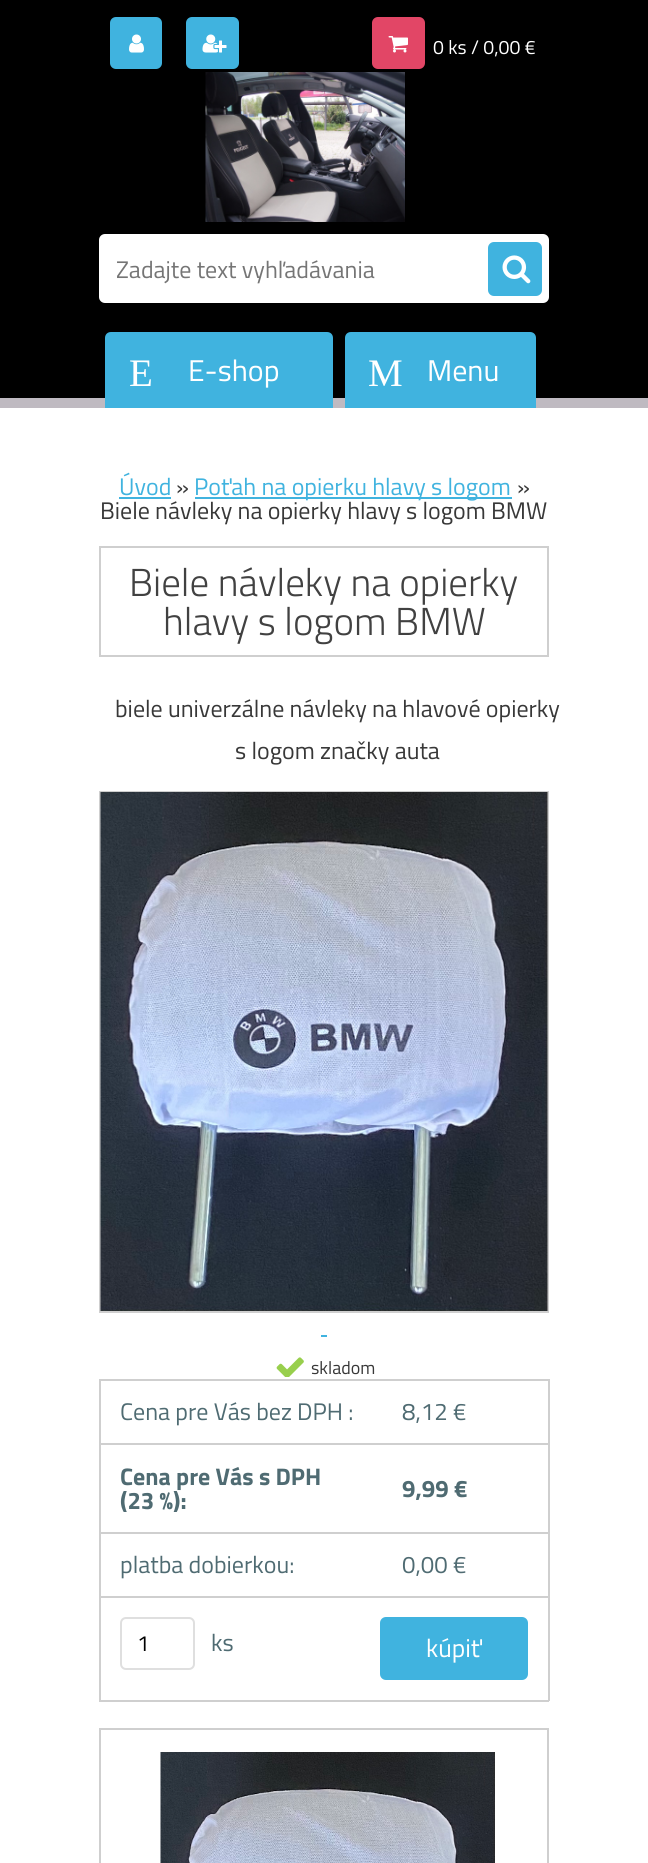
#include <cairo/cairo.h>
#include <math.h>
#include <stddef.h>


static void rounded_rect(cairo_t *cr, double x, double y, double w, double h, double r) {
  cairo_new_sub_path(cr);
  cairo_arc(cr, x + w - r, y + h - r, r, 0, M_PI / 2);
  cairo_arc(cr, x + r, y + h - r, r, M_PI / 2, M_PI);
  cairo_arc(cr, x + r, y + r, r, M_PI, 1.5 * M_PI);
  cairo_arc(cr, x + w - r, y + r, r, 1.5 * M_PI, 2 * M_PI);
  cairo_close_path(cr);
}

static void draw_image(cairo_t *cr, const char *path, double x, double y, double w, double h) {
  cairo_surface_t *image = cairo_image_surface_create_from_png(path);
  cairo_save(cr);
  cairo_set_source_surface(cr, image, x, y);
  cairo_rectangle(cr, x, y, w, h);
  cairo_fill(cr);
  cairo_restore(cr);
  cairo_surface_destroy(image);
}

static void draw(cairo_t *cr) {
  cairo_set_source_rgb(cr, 1, 1, 1);
  cairo_paint(cr);
  cairo_set_source_rgb(cr, 0, 0, 0);
  cairo_rectangle(cr, 0, 0, 648, 398);
  cairo_fill(cr);
  cairo_set_source_rgb(cr, 64 / 255.0, 179 / 255.0, 223 / 255.0);
  rounded_rect(cr, 110, 17, 52, 52, 6);
  cairo_fill(cr);
  draw_image(cr, "images/1.png", 129, 34, 15, 19);
  rounded_rect(cr, 186, 17, 53, 52, 6);
  cairo_fill(cr);
  draw_image(cr, "images/2.png", 202, 34, 25, 19);
  cairo_set_source_rgb(cr, 226 / 255.0, 70 / 255.0, 102 / 255.0);
  rounded_rect(cr, 372, 17, 53, 52, 6);
  cairo_fill(cr);
  draw_image(cr, "images/3.png", 388, 36, 20, 17);
  cairo_set_source_rgb(cr, 191 / 255.0, 186 / 255.0, 193 / 255.0);
  cairo_rectangle(cr, 0, 398, 648, 10);
  cairo_fill(cr);
  cairo_set_source_rgb(cr, 64 / 255.0, 179 / 255.0, 223 / 255.0);
  cairo_new_path(cr);
  cairo_move_to(cr, 111, 332);
  cairo_line_to(cr, 327, 332);
  cairo_curve_to(cr, 330.5, 332, 333, 334.5, 333, 338);
  cairo_line_to(cr, 333, 408);
  cairo_line_to(cr, 105, 408);
  cairo_line_to(cr, 105, 338);
  cairo_curve_to(cr, 105, 334.5, 107.5, 332, 111, 332);
  cairo_close_path(cr);
  cairo_fill(cr);
  cairo_new_path(cr);
  cairo_move_to(cr, 351, 332);
  cairo_line_to(cr, 530, 332);
  cairo_curve_to(cr, 533.5, 332, 536, 334.5, 536, 338);
  cairo_line_to(cr, 536, 408);
  cairo_line_to(cr, 345, 408);
  cairo_line_to(cr, 345, 338);
  cairo_curve_to(cr, 345, 334.5, 347.5, 332, 351, 332);
  cairo_close_path(cr);
  cairo_fill(cr);
  cairo_rectangle(cr, 119, 497, 52, 2);
  cairo_fill(cr);
  cairo_rectangle(cr, 195, 497, 317, 2);
  cairo_fill(cr);
  cairo_rectangle(cr, 100, 547, 448, 109);
  cairo_set_source_rgb(cr, 207 / 255.0, 207 / 255.0, 207 / 255.0);
  cairo_stroke(cr);
  cairo_rectangle(cr, 100, 792, 448, 520);
  cairo_stroke(cr);
  draw_image(cr, "images/4.png", 100, 792, 448, 519);
  cairo_set_source_rgb(cr, 64 / 255.0, 179 / 255.0, 223 / 255.0);
  cairo_rectangle(cr, 321, 1335, 6, 2);
  cairo_fill(cr);
  draw_image(cr, "images/5.png", 276, 1357, 28, 20);
  cairo_set_source_rgb(cr, 207 / 255.0, 207 / 255.0, 207 / 255.0);
  cairo_rectangle(cr, 99, 1379, 450, 2);
  cairo_fill(cr);
  cairo_rectangle(cr, 548, 1379, 2, 322);
  cairo_fill(cr);
  cairo_rectangle(cr, 99, 1700, 450, 2);
  cairo_fill(cr);
  cairo_rectangle(cr, 99, 1379, 2, 322);
  cairo_fill(cr);
  cairo_rectangle(cr, 99, 1443, 450, 2);
  cairo_fill(cr);
  cairo_rectangle(cr, 99, 1532, 450, 2);
  cairo_fill(cr);
  cairo_rectangle(cr, 99, 1596, 450, 2);
  cairo_fill(cr);
  rounded_rect(cr, 121, 1618, 73, 51, 5);
  cairo_set_source_rgb(cr, 223 / 255.0, 223 / 255.0, 223 / 255.0);
  cairo_stroke(cr);
  cairo_set_source_rgb(cr, 64 / 255.0, 179 / 255.0, 223 / 255.0);
  rounded_rect(cr, 380, 1617, 148, 63, 6);
  cairo_fill(cr);
  cairo_rectangle(cr, 100, 1729, 448, 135);
  cairo_set_source_rgb(cr, 207 / 255.0, 207 / 255.0, 207 / 255.0);
  cairo_stroke(cr);
  draw_image(cr, "images/6.png", 160, 1752, 335, 111);
  draw_image(cr, "images/7.png", 205, 72, 200, 150);
  cairo_set_source_rgb(cr, 1, 1, 1);
  rounded_rect(cr, 99, 234, 450, 69, 6);
  cairo_fill(cr);
  cairo_set_source_rgb(cr, 64 / 255.0, 179 / 255.0, 223 / 255.0);
  rounded_rect(cr, 488, 242, 54, 54, 6);
  cairo_fill(cr);
  draw_image(cr, "images/8.png", 502, 255, 29, 29);
  cairo_select_font_face(cr, "Titillium Web", CAIRO_FONT_SLANT_NORMAL, CAIRO_FONT_WEIGHT_NORMAL);
  cairo_set_font_size(cr, 19.5);
  cairo_set_source_rgb(cr, 1, 1, 1);
  cairo_move_to(cr, 433, 54);
  cairo_show_text(cr, "0 ks / 0,00 €");
  cairo_select_font_face(cr, "Liberation Serif", CAIRO_FONT_SLANT_NORMAL, CAIRO_FONT_WEIGHT_NORMAL);
  cairo_set_font_size(cr, 39);
  cairo_move_to(cr, 129, 386);
  cairo_show_text(cr, "E");
  cairo_select_font_face(cr, "Titillium Web", CAIRO_FONT_SLANT_NORMAL, CAIRO_FONT_WEIGHT_NORMAL);
  cairo_set_font_size(cr, 30);
  cairo_move_to(cr, 188, 381);
  cairo_show_text(cr, "E-shop");
  cairo_select_font_face(cr, "Liberation Serif", CAIRO_FONT_SLANT_NORMAL, CAIRO_FONT_WEIGHT_NORMAL);
  cairo_set_font_size(cr, 39);
  cairo_move_to(cr, 368, 386);
  cairo_show_text(cr, "M");
  cairo_select_font_face(cr, "Titillium Web", CAIRO_FONT_SLANT_NORMAL, CAIRO_FONT_WEIGHT_NORMAL);
  cairo_set_font_size(cr, 30);
  cairo_move_to(cr, 427, 381);
  cairo_show_text(cr, "Menu");
  cairo_set_font_size(cr, 24);
  cairo_set_source_rgb(cr, 64 / 255.0, 179 / 255.0, 223 / 255.0);
  cairo_move_to(cr, 119, 495);
  cairo_show_text(cr, "Úvod");
  cairo_set_source_rgb(cr, 56 / 255.0, 56 / 255.0, 56 / 255.0);
  cairo_move_to(cr, 176, 495);
  cairo_show_text(cr, "»");
  cairo_set_source_rgb(cr, 64 / 255.0, 179 / 255.0, 223 / 255.0);
  cairo_move_to(cr, 194, 495);
  cairo_show_text(cr, "Poťah na opierku hlavy s logom");
  cairo_set_source_rgb(cr, 56 / 255.0, 56 / 255.0, 56 / 255.0);
  cairo_move_to(cr, 517, 495);
  cairo_show_text(cr, "»");
  cairo_move_to(cr, 100, 519);
  cairo_show_text(cr, "Biele návleky na opierky hlavy s logom BMW");
  cairo_select_font_face(cr, "Titillium Web Light", CAIRO_FONT_SLANT_NORMAL, CAIRO_FONT_WEIGHT_NORMAL);
  cairo_set_font_size(cr, 39);
  cairo_set_source_rgb(cr, 65 / 255.0, 65 / 255.0, 65 / 255.0);
  cairo_move_to(cr, 129, 596);
  cairo_show_text(cr, "Biele návleky na opierky");
  cairo_move_to(cr, 163, 635);
  cairo_show_text(cr, "hlavy s logom BMW");
  cairo_select_font_face(cr, "Titillium Web", CAIRO_FONT_SLANT_NORMAL, CAIRO_FONT_WEIGHT_NORMAL);
  cairo_set_font_size(cr, 24);
  cairo_set_source_rgb(cr, 56 / 255.0, 56 / 255.0, 56 / 255.0);
  cairo_move_to(cr, 115, 717);
  cairo_show_text(cr, "biele univerzálne návleky na hlavové opierky");
  cairo_move_to(cr, 235, 759);
  cairo_show_text(cr, "s logom značky auta");
  cairo_set_font_size(cr, 18);
  cairo_move_to(cr, 311, 1374);
  cairo_show_text(cr, "skladom");
  cairo_set_font_size(cr, 24);
  cairo_set_source_rgb(cr, 79 / 255.0, 107 / 255.0, 114 / 255.0);
  cairo_move_to(cr, 120, 1420);
  cairo_show_text(cr, "Cena pre Vás bez DPH :");
  cairo_move_to(cr, 402, 1420);
  cairo_show_text(cr, "8,12 €");
  cairo_select_font_face(cr, "Titillium Web", CAIRO_FONT_SLANT_NORMAL, CAIRO_FONT_WEIGHT_BOLD);
  cairo_move_to(cr, 120, 1485);
  cairo_show_text(cr, "Cena pre Vás s DPH");
  cairo_move_to(cr, 120, 1509);
  cairo_show_text(cr, "(23 %):");
  cairo_move_to(cr, 402, 1497);
  cairo_show_text(cr, "9,99 €");
  cairo_select_font_face(cr, "Titillium Web", CAIRO_FONT_SLANT_NORMAL, CAIRO_FONT_WEIGHT_NORMAL);
  cairo_move_to(cr, 120, 1573);
  cairo_show_text(cr, "platba dobierkou:");
  cairo_move_to(cr, 402, 1573);
  cairo_show_text(cr, "0,00 €");
  cairo_set_font_size(cr, 22);
  cairo_set_source_rgb(cr, 0, 0, 0);
  cairo_move_to(cr, 137, 1651);
  cairo_show_text(cr, "1");
  cairo_set_font_size(cr, 24);
  cairo_set_source_rgb(cr, 79 / 255.0, 107 / 255.0, 114 / 255.0);
  cairo_move_to(cr, 211, 1651);
  cairo_show_text(cr, "ks");
  cairo_set_font_size(cr, 25.5);
  cairo_set_source_rgb(cr, 1, 1, 1);
  cairo_move_to(cr, 426, 1657);
  cairo_show_text(cr, "kúpiť");
  cairo_set_font_size(cr, 24);
  cairo_set_source_rgb(cr, 117 / 255.0, 117 / 255.0, 117 / 255.0);
  cairo_move_to(cr, 116, 278);
  cairo_show_text(cr, "Zadajte text vyhľadávania");
}

int main(void) {
  cairo_surface_t *surface = cairo_image_surface_create(CAIRO_FORMAT_RGB24, 648, 1863);
  cairo_t *cr = cairo_create(surface);
  cairo_font_options_t *options = cairo_font_options_create();
  cairo_font_options_set_hint_metrics(options, CAIRO_HINT_METRICS_OFF);
  cairo_font_options_set_hint_style(options, CAIRO_HINT_STYLE_NONE);
  cairo_set_font_options(cr, options);
  cairo_set_miter_limit(cr, 4);
  draw(cr);
  cairo_surface_write_to_png(surface, "out.png");
  cairo_font_options_destroy(options);
  cairo_destroy(cr);
  cairo_surface_destroy(surface);
  return 0;
}
